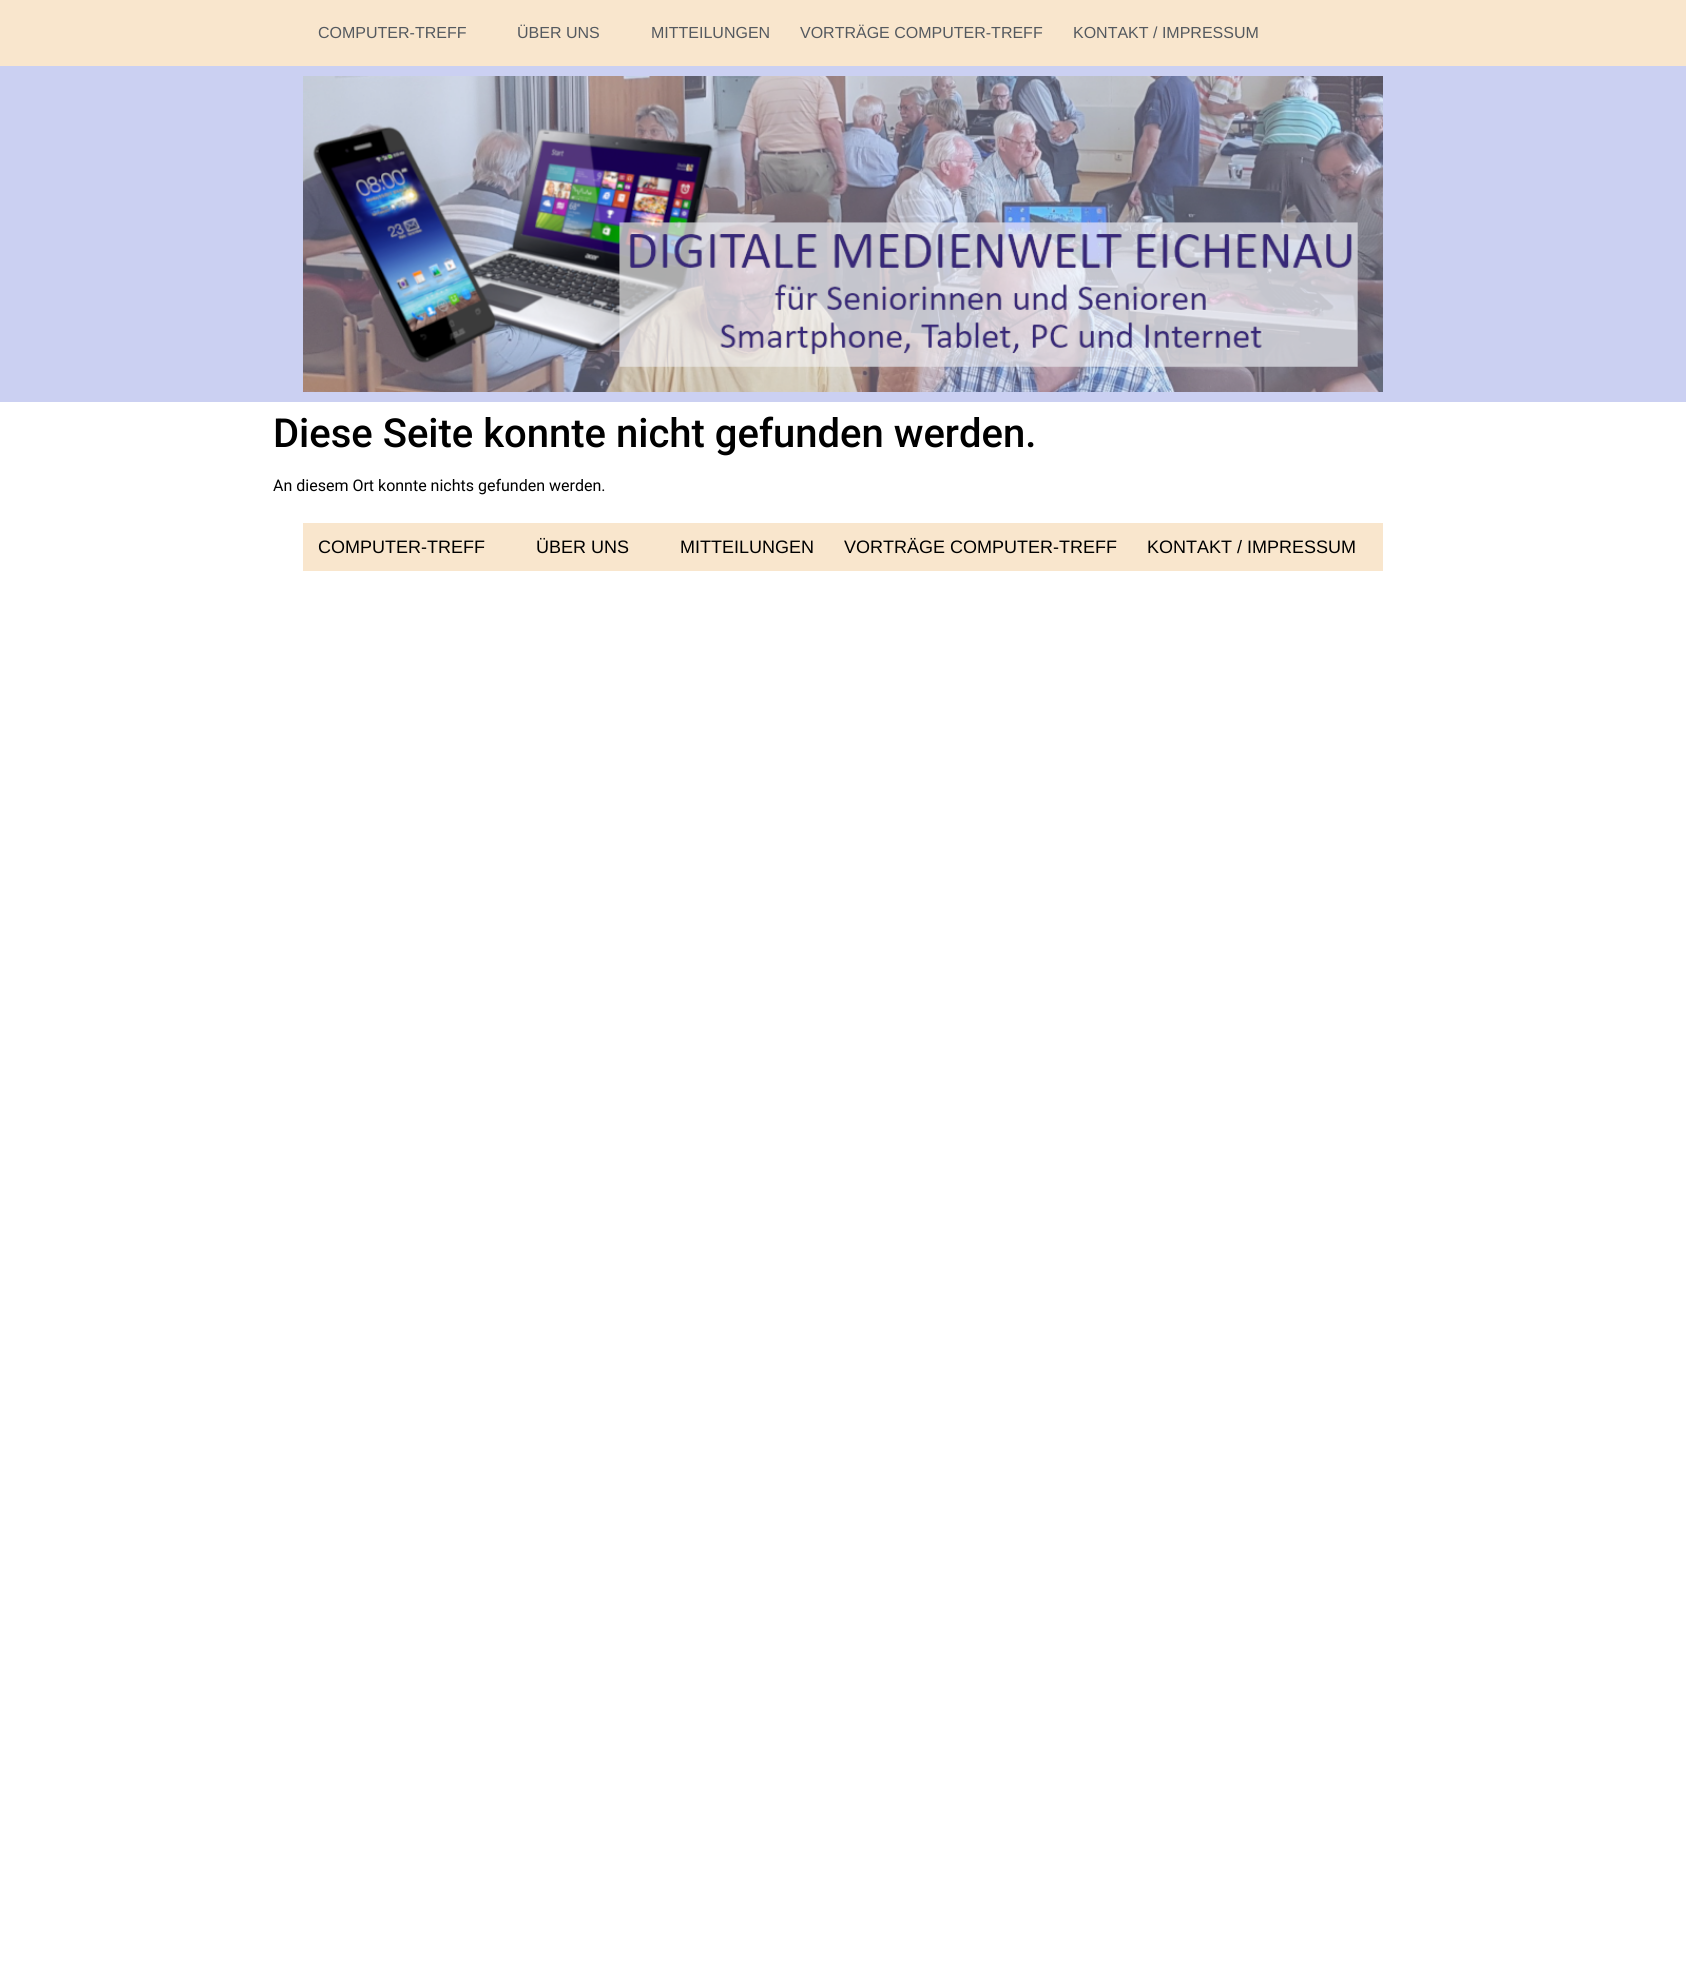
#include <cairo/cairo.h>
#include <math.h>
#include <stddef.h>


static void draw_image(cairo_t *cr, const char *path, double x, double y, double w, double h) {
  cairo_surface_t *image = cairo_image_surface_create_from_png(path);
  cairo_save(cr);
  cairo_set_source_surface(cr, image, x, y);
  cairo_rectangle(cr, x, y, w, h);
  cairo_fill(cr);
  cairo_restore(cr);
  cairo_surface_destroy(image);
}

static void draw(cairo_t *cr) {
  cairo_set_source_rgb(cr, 1, 1, 1);
  cairo_paint(cr);
  cairo_set_source_rgb(cr, 249 / 255.0, 230 / 255.0, 205 / 255.0);
  cairo_rectangle(cr, 0, 0, 1686, 66);
  cairo_fill(cr);
  cairo_set_source_rgb(cr, 203 / 255.0, 208 / 255.0, 242 / 255.0);
  cairo_rectangle(cr, 0, 66, 1686, 336);
  cairo_fill(cr);
  draw_image(cr, "images/1.png", 303, 76, 1080, 316);
  cairo_set_source_rgb(cr, 249 / 255.0, 230 / 255.0, 205 / 255.0);
  cairo_rectangle(cr, 303, 523, 1080, 48);
  cairo_fill(cr);
  cairo_select_font_face(cr, "Liberation Sans", CAIRO_FONT_SLANT_NORMAL, CAIRO_FONT_WEIGHT_NORMAL);
  cairo_set_font_size(cr, 16);
  cairo_set_source_rgb(cr, 84 / 255.0, 89 / 255.0, 95 / 255.0);
  cairo_move_to(cr, 318, 38);
  cairo_show_text(cr, "COMPUTER-TREFF");
  cairo_move_to(cr, 517, 38);
  cairo_show_text(cr, "ÜBER UNS");
  cairo_move_to(cr, 651, 38);
  cairo_show_text(cr, "MITTEILUNGEN");
  cairo_move_to(cr, 800, 38);
  cairo_show_text(cr, "VORTRÄGE COMPUTER-TREFF");
  cairo_move_to(cr, 1073, 38);
  cairo_show_text(cr, "KONTAKT / IMPRESSUM");
  cairo_select_font_face(cr, "Roboto Medium", CAIRO_FONT_SLANT_NORMAL, CAIRO_FONT_WEIGHT_NORMAL);
  cairo_set_font_size(cr, 40);
  cairo_set_source_rgb(cr, 0, 0, 0);
  cairo_move_to(cr, 273, 447);
  cairo_show_text(cr, "Diese Seite konnte nicht gefunden werden.");
  cairo_select_font_face(cr, "Roboto", CAIRO_FONT_SLANT_NORMAL, CAIRO_FONT_WEIGHT_NORMAL);
  cairo_set_font_size(cr, 16);
  cairo_move_to(cr, 273, 491);
  cairo_show_text(cr, "An diesem Ort konnte nichts gefunden werden.");
  cairo_select_font_face(cr, "Liberation Sans", CAIRO_FONT_SLANT_NORMAL, CAIRO_FONT_WEIGHT_NORMAL);
  cairo_set_font_size(cr, 18);
  cairo_move_to(cr, 318, 553);
  cairo_show_text(cr, "COMPUTER-TREFF");
  cairo_move_to(cr, 536, 553);
  cairo_show_text(cr, "ÜBER UNS");
  cairo_move_to(cr, 680, 553);
  cairo_show_text(cr, "MITTEILUNGEN");
  cairo_move_to(cr, 844, 553);
  cairo_show_text(cr, "VORTRÄGE COMPUTER-TREFF");
  cairo_move_to(cr, 1147, 553);
  cairo_show_text(cr, "KONTAKT / IMPRESSUM");
}

int main(void) {
  cairo_surface_t *surface = cairo_image_surface_create(CAIRO_FORMAT_RGB24, 1686, 1970);
  cairo_t *cr = cairo_create(surface);
  cairo_font_options_t *options = cairo_font_options_create();
  cairo_font_options_set_hint_metrics(options, CAIRO_HINT_METRICS_OFF);
  cairo_font_options_set_hint_style(options, CAIRO_HINT_STYLE_NONE);
  cairo_set_font_options(cr, options);
  cairo_set_miter_limit(cr, 4);
  draw(cr);
  cairo_surface_write_to_png(surface, "out.png");
  cairo_font_options_destroy(options);
  cairo_destroy(cr);
  cairo_surface_destroy(surface);
  return 0;
}
